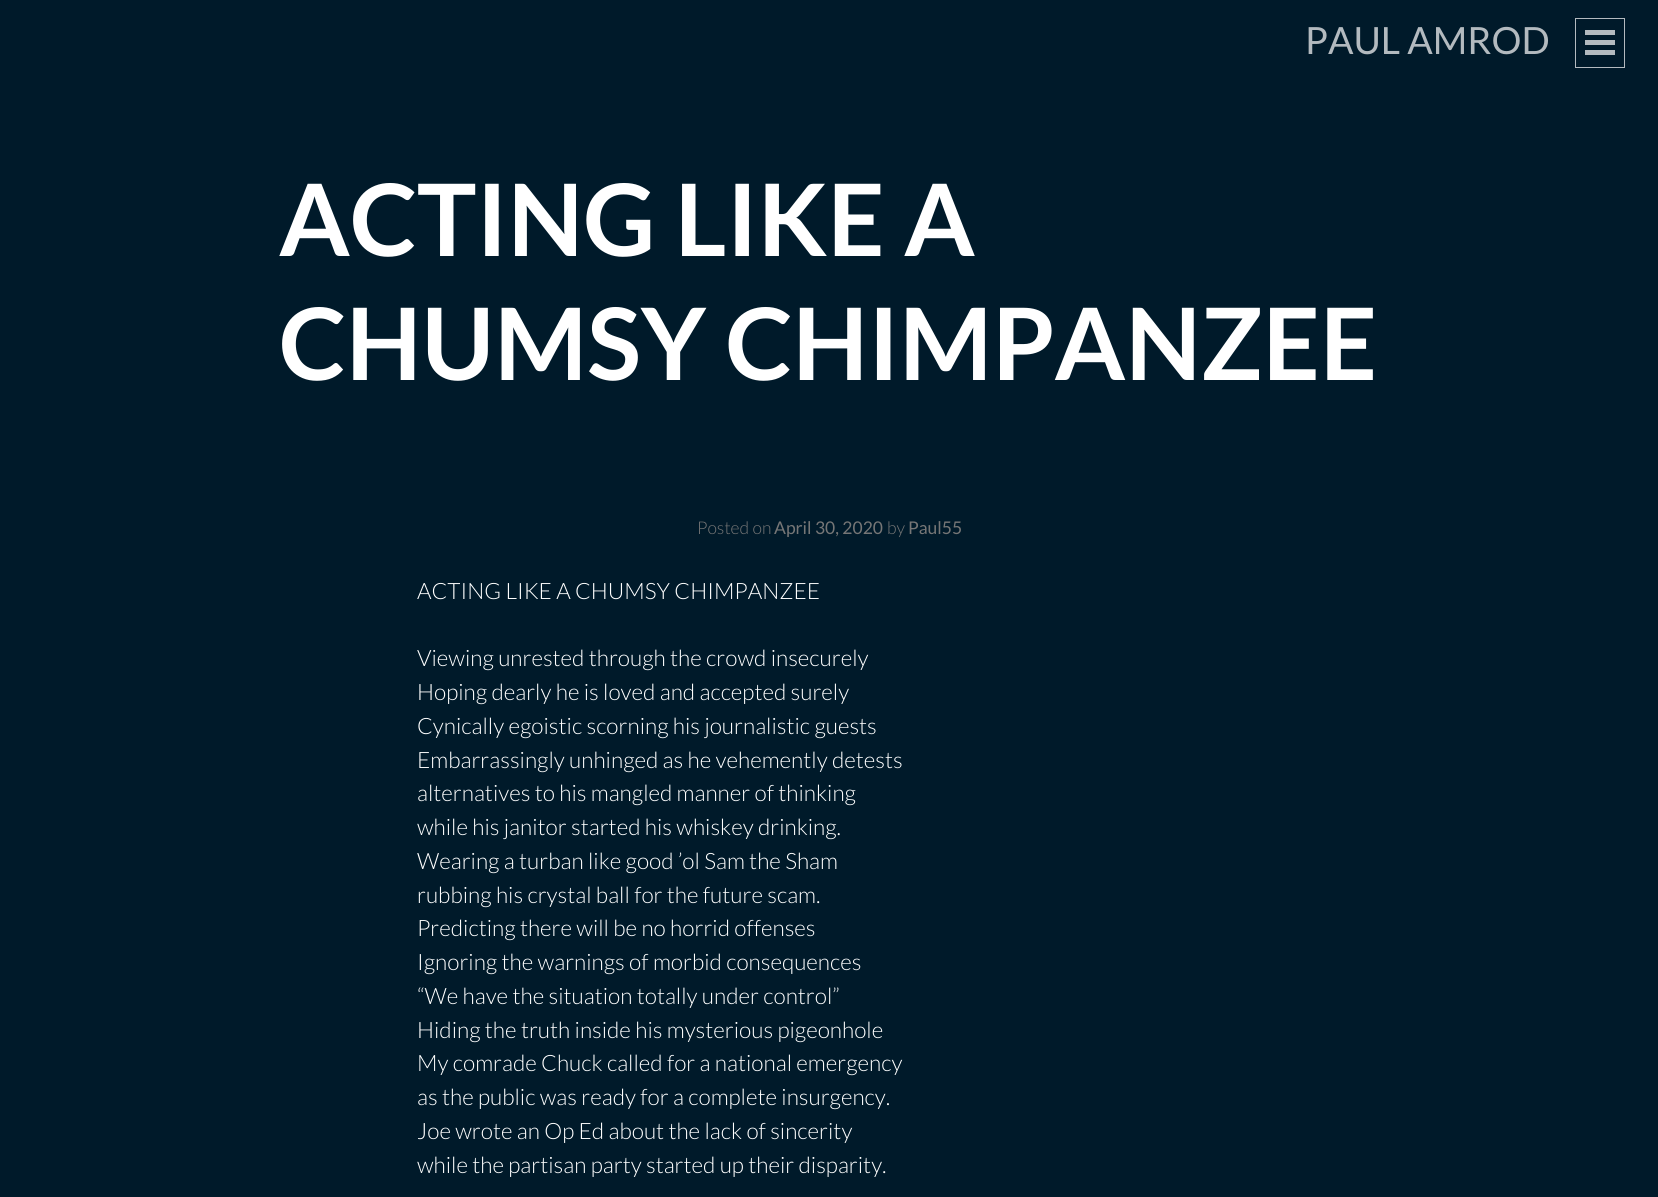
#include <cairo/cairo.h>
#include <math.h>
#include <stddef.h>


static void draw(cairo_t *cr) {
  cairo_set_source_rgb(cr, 0, 26 / 255.0, 42 / 255.0);
  cairo_paint(cr);
  cairo_rectangle(cr, 1575.5, 18.5, 49, 49);
  cairo_set_source_rgb(cr, 179 / 255.0, 186 / 255.0, 191 / 255.0);
  cairo_set_line_width(cr, 1);
  cairo_stroke(cr);
  cairo_rectangle(cr, 1585, 40, 30, 5);
  cairo_fill(cr);
  cairo_rectangle(cr, 1585, 30, 30, 5);
  cairo_fill(cr);
  cairo_rectangle(cr, 1585, 50, 30, 5);
  cairo_fill(cr);
  cairo_select_font_face(cr, "Lato", CAIRO_FONT_SLANT_NORMAL, CAIRO_FONT_WEIGHT_NORMAL);
  cairo_set_font_size(cr, 37.5);
  cairo_move_to(cr, 1305, 54);
  cairo_show_text(cr, "PAUL AMROD");
  cairo_select_font_face(cr, "Lato", CAIRO_FONT_SLANT_NORMAL, CAIRO_FONT_WEIGHT_BOLD);
  cairo_set_font_size(cr, 99.9);
  cairo_set_source_rgb(cr, 1, 1, 1);
  cairo_move_to(cr, 279, 256);
  cairo_show_text(cr, "ACTING LIKE A");
  cairo_move_to(cr, 279, 380);
  cairo_show_text(cr, "CHUMSY CHIMPANZEE");
  cairo_select_font_face(cr, "Lato Light", CAIRO_FONT_SLANT_NORMAL, CAIRO_FONT_WEIGHT_NORMAL);
  cairo_set_font_size(cr, 17.5);
  cairo_set_source_rgb(cr, 118 / 255.0, 118 / 255.0, 118 / 255.0);
  cairo_move_to(cr, 697, 534);
  cairo_show_text(cr, "Posted on");
  cairo_select_font_face(cr, "Lato", CAIRO_FONT_SLANT_NORMAL, CAIRO_FONT_WEIGHT_NORMAL);
  cairo_move_to(cr, 774, 534);
  cairo_show_text(cr, "April 30, 2020");
  cairo_select_font_face(cr, "Lato Light", CAIRO_FONT_SLANT_NORMAL, CAIRO_FONT_WEIGHT_NORMAL);
  cairo_move_to(cr, 887, 534);
  cairo_show_text(cr, "by");
  cairo_select_font_face(cr, "Lato", CAIRO_FONT_SLANT_NORMAL, CAIRO_FONT_WEIGHT_NORMAL);
  cairo_move_to(cr, 908, 534);
  cairo_show_text(cr, "Paul55");
  cairo_select_font_face(cr, "Lato Light", CAIRO_FONT_SLANT_NORMAL, CAIRO_FONT_WEIGHT_NORMAL);
  cairo_set_font_size(cr, 22.5);
  cairo_set_source_rgb(cr, 1, 1, 1);
  cairo_move_to(cr, 417, 599);
  cairo_show_text(cr, "ACTING LIKE A CHUMSY CHIMPANZEE");
  cairo_move_to(cr, 417, 666);
  cairo_show_text(cr, "Viewing unrested through the crowd insecurely");
  cairo_move_to(cr, 417, 700);
  cairo_show_text(cr, "Hoping dearly he is loved and accepted surely");
  cairo_move_to(cr, 417, 734);
  cairo_show_text(cr, "Cynically egoistic scorning his journalistic guests");
  cairo_move_to(cr, 417, 768);
  cairo_show_text(cr, "Embarrassingly unhinged as he vehemently detests");
  cairo_move_to(cr, 417, 801);
  cairo_show_text(cr, "alternatives to his mangled manner of thinking");
  cairo_move_to(cr, 417, 835);
  cairo_show_text(cr, "while his janitor started his whiskey drinking.");
  cairo_move_to(cr, 417, 869);
  cairo_show_text(cr, "Wearing a turban like good ’ol Sam the Sham");
  cairo_move_to(cr, 417, 903);
  cairo_show_text(cr, "rubbing his crystal ball for the future scam.");
  cairo_move_to(cr, 417, 936);
  cairo_show_text(cr, "Predicting there will be no horrid offenses");
  cairo_move_to(cr, 417, 970);
  cairo_show_text(cr, "Ignoring the warnings of morbid consequences");
  cairo_move_to(cr, 417, 1004);
  cairo_show_text(cr, "“We have the situation totally under control”");
  cairo_move_to(cr, 417, 1038);
  cairo_show_text(cr, "Hiding the truth inside his mysterious pigeonhole");
  cairo_move_to(cr, 417, 1071);
  cairo_show_text(cr, "My comrade Chuck called for a national emergency");
  cairo_move_to(cr, 417, 1105);
  cairo_show_text(cr, "as the public was ready for a complete insurgency.");
  cairo_move_to(cr, 417, 1139);
  cairo_show_text(cr, "Joe wrote an Op Ed about the lack of sincerity");
  cairo_move_to(cr, 417, 1173);
  cairo_show_text(cr, "while the partisan party started up their disparity.");
}

int main(void) {
  cairo_surface_t *surface = cairo_image_surface_create(CAIRO_FORMAT_RGB24, 1658, 1197);
  cairo_t *cr = cairo_create(surface);
  cairo_font_options_t *options = cairo_font_options_create();
  cairo_font_options_set_hint_metrics(options, CAIRO_HINT_METRICS_OFF);
  cairo_font_options_set_hint_style(options, CAIRO_HINT_STYLE_NONE);
  cairo_set_font_options(cr, options);
  cairo_set_miter_limit(cr, 4);
  draw(cr);
  cairo_surface_write_to_png(surface, "out.png");
  cairo_font_options_destroy(options);
  cairo_destroy(cr);
  cairo_surface_destroy(surface);
  return 0;
}
